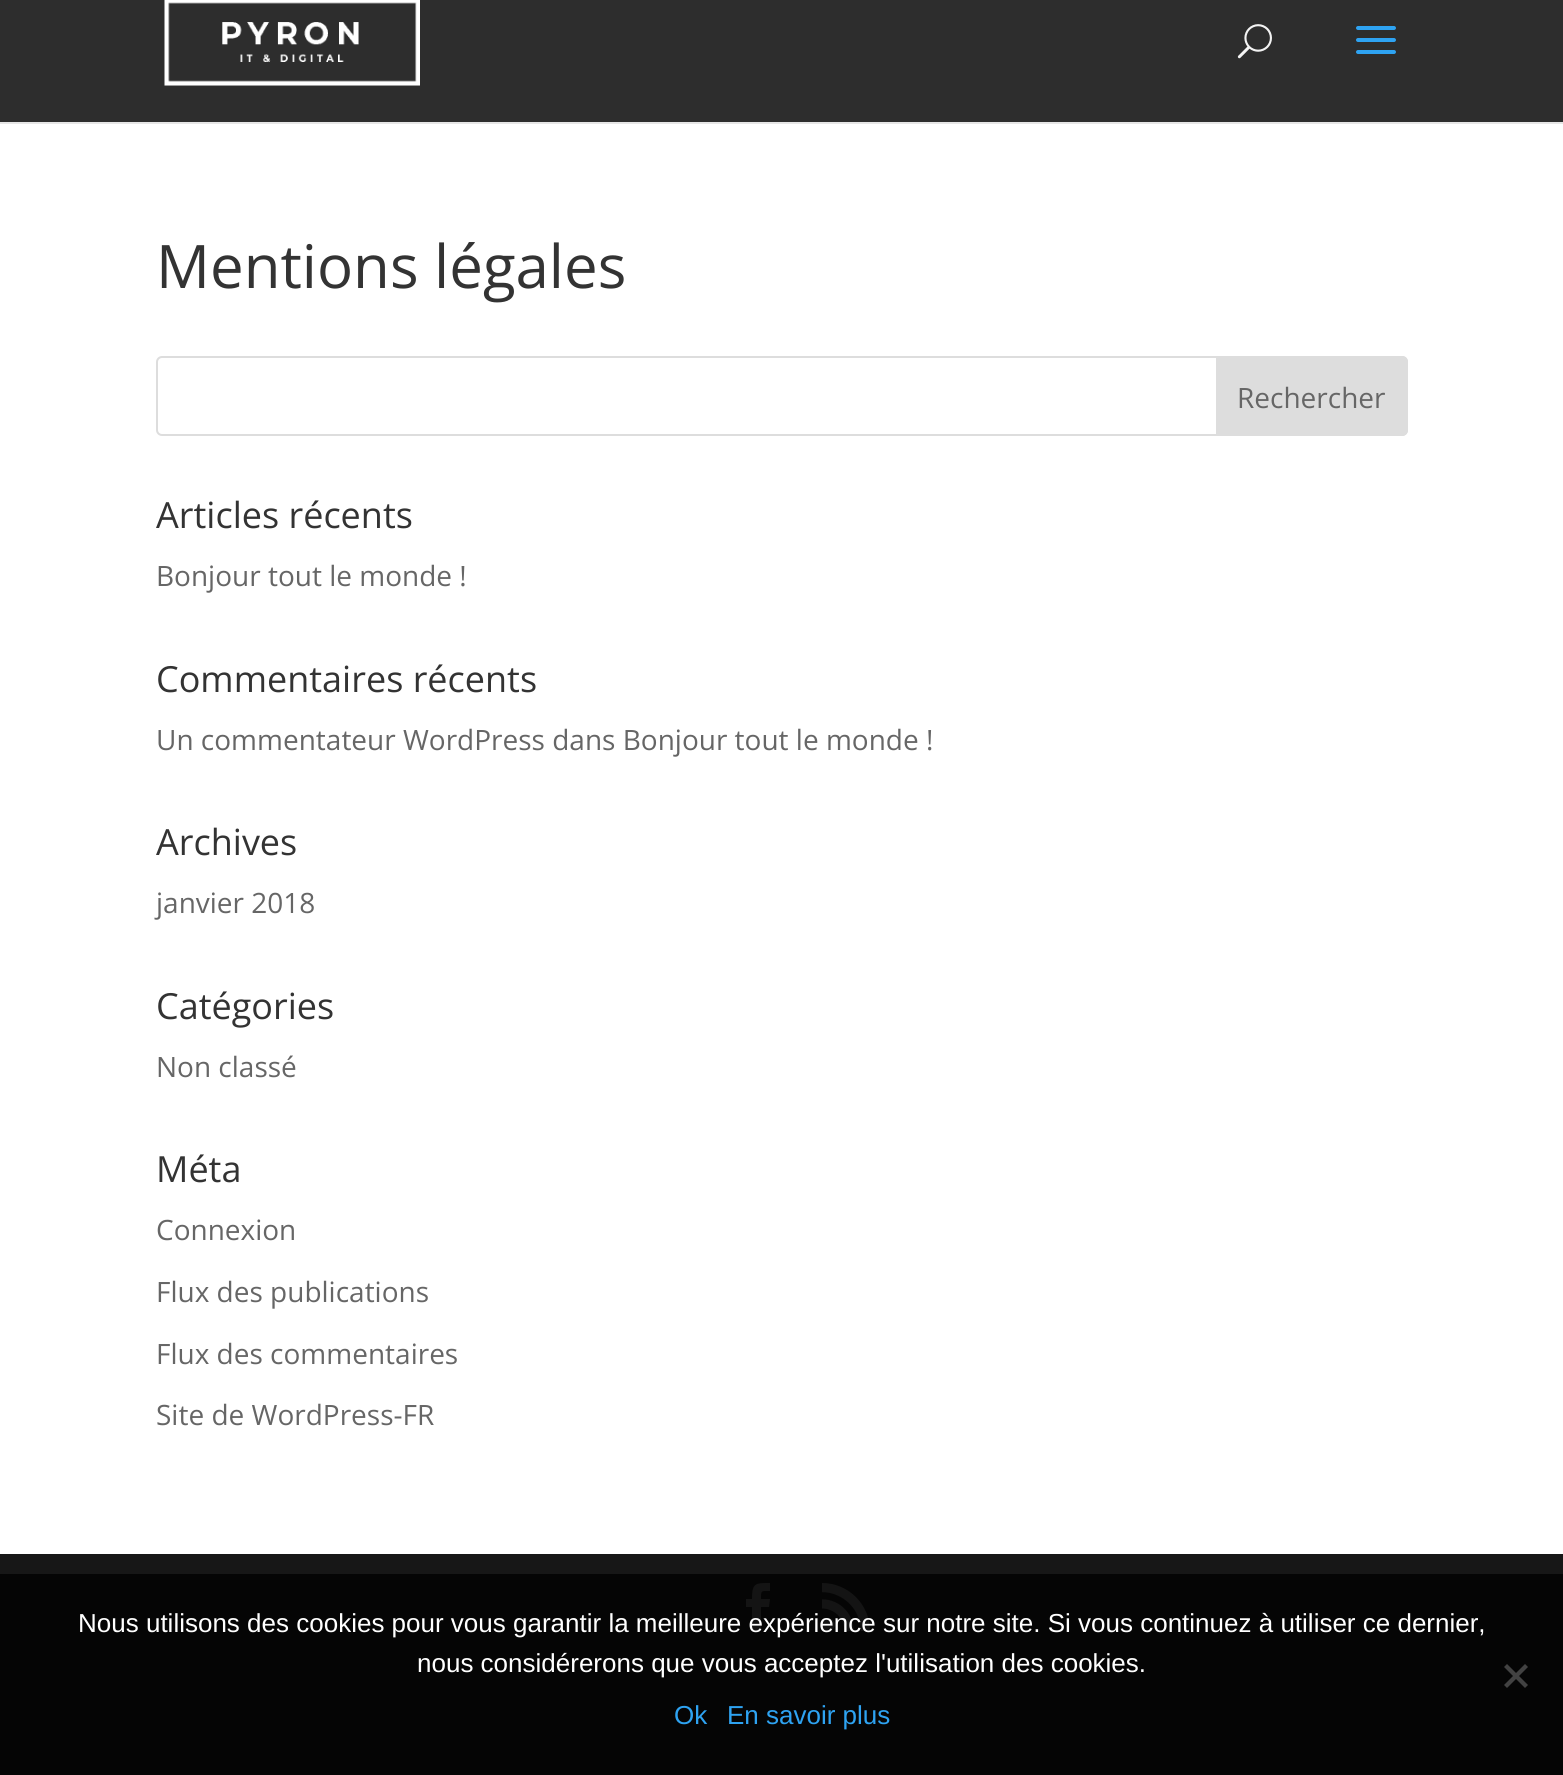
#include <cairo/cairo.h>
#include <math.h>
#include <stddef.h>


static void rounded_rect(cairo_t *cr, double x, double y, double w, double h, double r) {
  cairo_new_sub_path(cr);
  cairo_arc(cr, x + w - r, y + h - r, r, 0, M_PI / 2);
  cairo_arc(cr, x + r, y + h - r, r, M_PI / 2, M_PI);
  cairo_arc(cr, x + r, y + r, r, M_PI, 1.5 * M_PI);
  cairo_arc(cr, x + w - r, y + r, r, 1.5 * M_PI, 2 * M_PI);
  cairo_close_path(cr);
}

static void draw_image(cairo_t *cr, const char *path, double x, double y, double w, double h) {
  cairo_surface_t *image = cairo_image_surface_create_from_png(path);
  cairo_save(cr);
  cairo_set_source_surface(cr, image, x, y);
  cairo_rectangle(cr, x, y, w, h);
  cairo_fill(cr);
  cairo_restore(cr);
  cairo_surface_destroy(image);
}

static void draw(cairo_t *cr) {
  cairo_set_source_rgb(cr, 1, 1, 1);
  cairo_paint(cr);
  cairo_set_source_rgb(cr, 230 / 255.0, 230 / 255.0, 230 / 255.0);
  cairo_rectangle(cr, 0, 122, 1563, 2);
  cairo_fill(cr);
  cairo_set_source_rgb(cr, 45 / 255.0, 45 / 255.0, 45 / 255.0);
  cairo_rectangle(cr, 0, 0, 1563, 122);
  cairo_fill(cr);
  draw_image(cr, "images/1.png", 164, 0, 256, 86);
  draw_image(cr, "images/2.png", 1237, 24, 35, 35);
  draw_image(cr, "images/3.png", 1356, 26, 40, 28);
  rounded_rect(cr, 157, 357, 1250, 78, 5);
  cairo_set_source_rgb(cr, 221 / 255.0, 221 / 255.0, 221 / 255.0);
  cairo_stroke(cr);
  cairo_new_path(cr);
  cairo_move_to(cr, 1217, 357);
  cairo_line_to(cr, 1402, 357);
  cairo_curve_to(cr, 1405, 357, 1407, 359, 1407, 362);
  cairo_line_to(cr, 1407, 430);
  cairo_curve_to(cr, 1407, 433, 1405, 435, 1402, 435);
  cairo_line_to(cr, 1217, 435);
  cairo_close_path(cr);
  cairo_fill_preserve(cr);
  cairo_stroke(cr);
  cairo_set_source_rgb(cr, 23 / 255.0, 23 / 255.0, 23 / 255.0);
  cairo_rectangle(cr, 0, 1554, 1563, 20);
  cairo_fill(cr);
  cairo_set_source_rgb(cr, 5 / 255.0, 5 / 255.0, 5 / 255.0);
  cairo_rectangle(cr, 0, 1574, 1563, 201);
  cairo_fill(cr);
  cairo_set_source_rgb(cr, 20 / 255.0, 20 / 255.0, 20 / 255.0);
  cairo_new_path(cr);
  cairo_move_to(cr, 752, 1631);
  cairo_line_to(cr, 761, 1631);
  cairo_line_to(cr, 761, 1607);
  cairo_line_to(cr, 769, 1607);
  cairo_line_to(cr, 770, 1599);
  cairo_line_to(cr, 761, 1599);
  cairo_curve_to(cr, 761, 1590, 761, 1591, 770, 1591);
  cairo_line_to(cr, 770, 1583);
  cairo_curve_to(cr, 755, 1583, 752, 1583, 752, 1599);
  cairo_line_to(cr, 746, 1599);
  cairo_line_to(cr, 746, 1607);
  cairo_line_to(cr, 752, 1607);
  cairo_close_path(cr);
  cairo_fill(cr);
  draw_image(cr, "images/4.png", 822, 1583, 48, 48);
  cairo_set_source_rgb(cr, 66 / 255.0, 66 / 255.0, 66 / 255.0);
  cairo_new_path(cr);
  cairo_move_to(cr, 1525, 1664);
  cairo_line_to(cr, 1528, 1667);
  cairo_line_to(cr, 1507, 1688);
  cairo_line_to(cr, 1504, 1685);
  cairo_close_path(cr);
  cairo_fill(cr);
  cairo_new_path(cr);
  cairo_move_to(cr, 1504, 1667);
  cairo_line_to(cr, 1507, 1664);
  cairo_line_to(cr, 1528, 1685);
  cairo_line_to(cr, 1525, 1688);
  cairo_close_path(cr);
  cairo_fill(cr);
  cairo_select_font_face(cr, "Open Sans", CAIRO_FONT_SLANT_NORMAL, CAIRO_FONT_WEIGHT_NORMAL);
  cairo_set_font_size(cr, 60);
  cairo_set_source_rgb(cr, 51 / 255.0, 51 / 255.0, 51 / 255.0);
  cairo_move_to(cr, 156, 288);
  cairo_show_text(cr, "Mentions légales");
  cairo_set_font_size(cr, 28);
  cairo_set_source_rgb(cr, 102 / 255.0, 102 / 255.0, 102 / 255.0);
  cairo_move_to(cr, 1237, 408);
  cairo_show_text(cr, "Rechercher");
  cairo_set_font_size(cr, 36);
  cairo_set_source_rgb(cr, 51 / 255.0, 51 / 255.0, 51 / 255.0);
  cairo_move_to(cr, 156, 528);
  cairo_show_text(cr, "Articles récents");
  cairo_set_font_size(cr, 28);
  cairo_set_source_rgb(cr, 102 / 255.0, 102 / 255.0, 102 / 255.0);
  cairo_move_to(cr, 156, 586);
  cairo_show_text(cr, "Bonjour tout le monde !");
  cairo_set_font_size(cr, 36);
  cairo_set_source_rgb(cr, 51 / 255.0, 51 / 255.0, 51 / 255.0);
  cairo_move_to(cr, 156, 692);
  cairo_show_text(cr, "Commentaires récents");
  cairo_set_font_size(cr, 28);
  cairo_set_source_rgb(cr, 102 / 255.0, 102 / 255.0, 102 / 255.0);
  cairo_move_to(cr, 156, 750);
  cairo_show_text(cr, "Un commentateur WordPress dans Bonjour tout le monde !");
  cairo_set_font_size(cr, 36);
  cairo_set_source_rgb(cr, 51 / 255.0, 51 / 255.0, 51 / 255.0);
  cairo_move_to(cr, 156, 855);
  cairo_show_text(cr, "Archives");
  cairo_set_font_size(cr, 28);
  cairo_set_source_rgb(cr, 102 / 255.0, 102 / 255.0, 102 / 255.0);
  cairo_move_to(cr, 156, 913);
  cairo_show_text(cr, "janvier 2018");
  cairo_set_font_size(cr, 36);
  cairo_set_source_rgb(cr, 51 / 255.0, 51 / 255.0, 51 / 255.0);
  cairo_move_to(cr, 156, 1019);
  cairo_show_text(cr, "Catégories");
  cairo_set_font_size(cr, 28);
  cairo_set_source_rgb(cr, 102 / 255.0, 102 / 255.0, 102 / 255.0);
  cairo_move_to(cr, 156, 1077);
  cairo_show_text(cr, "Non classé");
  cairo_set_font_size(cr, 36);
  cairo_set_source_rgb(cr, 51 / 255.0, 51 / 255.0, 51 / 255.0);
  cairo_move_to(cr, 156, 1182);
  cairo_show_text(cr, "Méta");
  cairo_set_font_size(cr, 28);
  cairo_set_source_rgb(cr, 102 / 255.0, 102 / 255.0, 102 / 255.0);
  cairo_move_to(cr, 156, 1240);
  cairo_show_text(cr, "Connexion");
  cairo_move_to(cr, 156, 1302);
  cairo_show_text(cr, "Flux des publications");
  cairo_move_to(cr, 156, 1364);
  cairo_show_text(cr, "Flux des commentaires");
  cairo_move_to(cr, 156, 1425);
  cairo_show_text(cr, "Site de WordPress-FR");
  cairo_select_font_face(cr, "Liberation Sans", CAIRO_FONT_SLANT_NORMAL, CAIRO_FONT_WEIGHT_NORMAL);
  cairo_set_font_size(cr, 26);
  cairo_set_source_rgb(cr, 1, 1, 1);
  cairo_move_to(cr, 78, 1632);
  cairo_show_text(cr, "Nous utilisons des cookies pour vous garantir la meilleure expérience sur notre site. Si vous continuez à utiliser ce dernier,");
  cairo_move_to(cr, 417, 1672);
  cairo_show_text(cr, "nous considérerons que vous acceptez l'utilisation des cookies.");
  cairo_set_source_rgb(cr, 46 / 255.0, 163 / 255.0, 242 / 255.0);
  cairo_move_to(cr, 674, 1724);
  cairo_show_text(cr, "Ok");
  cairo_move_to(cr, 727, 1724);
  cairo_show_text(cr, "En savoir plus");
}

int main(void) {
  cairo_surface_t *surface = cairo_image_surface_create(CAIRO_FORMAT_RGB24, 1563, 1775);
  cairo_t *cr = cairo_create(surface);
  cairo_font_options_t *options = cairo_font_options_create();
  cairo_font_options_set_hint_metrics(options, CAIRO_HINT_METRICS_OFF);
  cairo_font_options_set_hint_style(options, CAIRO_HINT_STYLE_NONE);
  cairo_set_font_options(cr, options);
  cairo_set_miter_limit(cr, 4);
  draw(cr);
  cairo_surface_write_to_png(surface, "out.png");
  cairo_font_options_destroy(options);
  cairo_destroy(cr);
  cairo_surface_destroy(surface);
  return 0;
}
